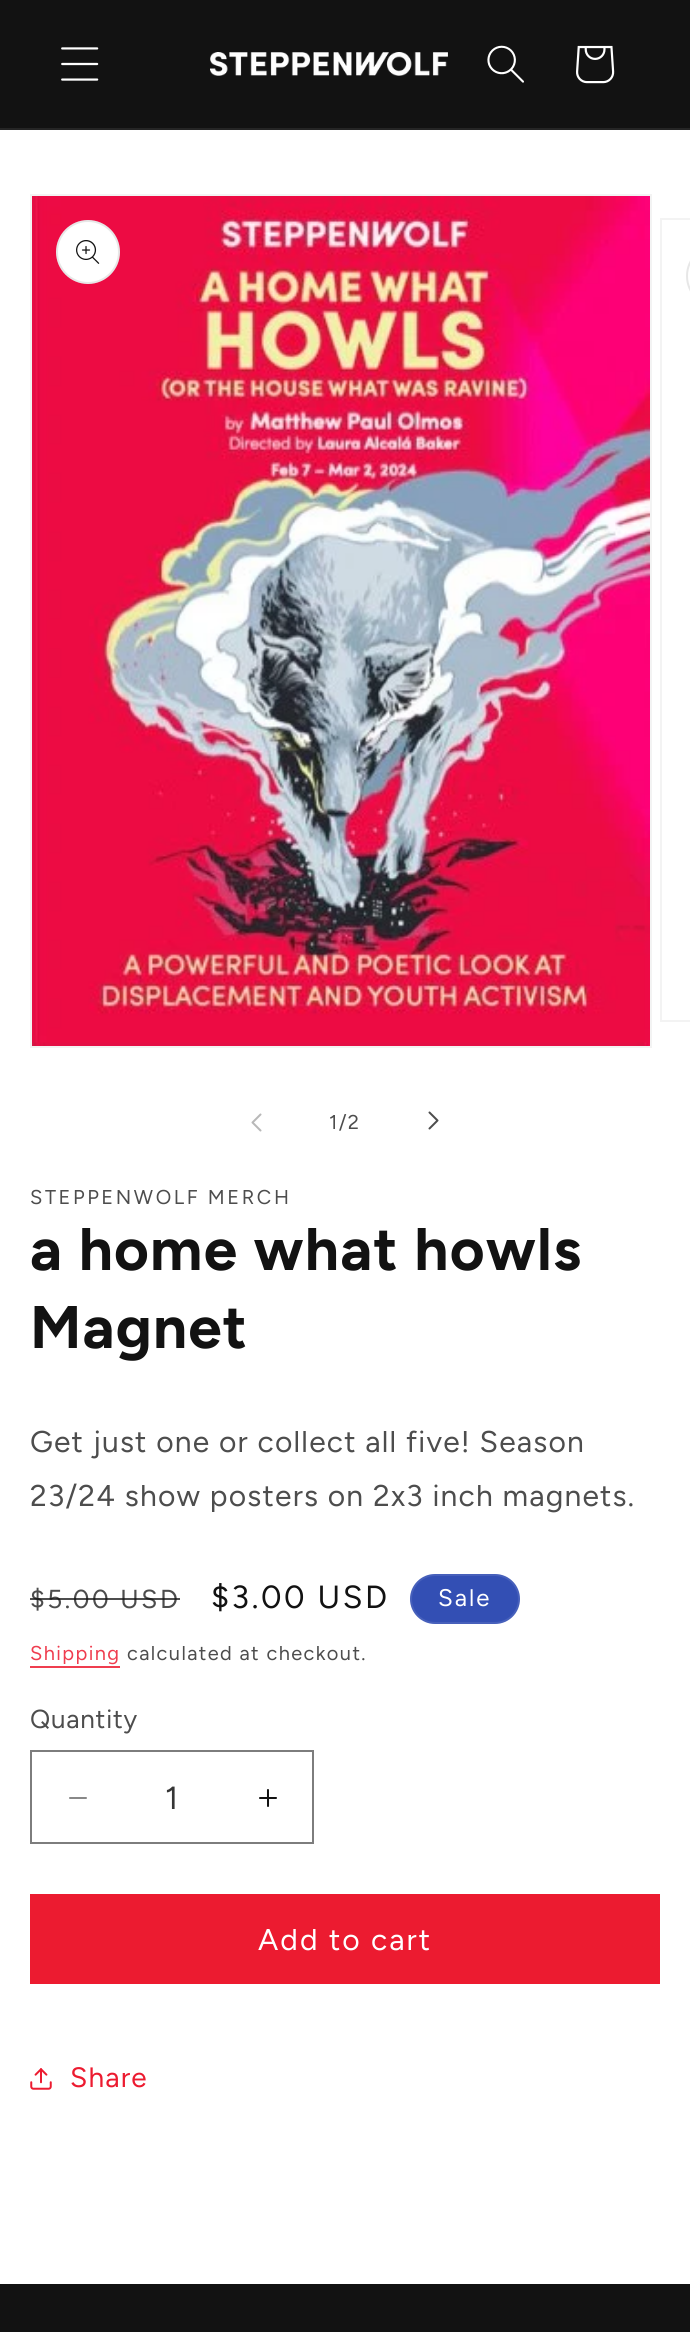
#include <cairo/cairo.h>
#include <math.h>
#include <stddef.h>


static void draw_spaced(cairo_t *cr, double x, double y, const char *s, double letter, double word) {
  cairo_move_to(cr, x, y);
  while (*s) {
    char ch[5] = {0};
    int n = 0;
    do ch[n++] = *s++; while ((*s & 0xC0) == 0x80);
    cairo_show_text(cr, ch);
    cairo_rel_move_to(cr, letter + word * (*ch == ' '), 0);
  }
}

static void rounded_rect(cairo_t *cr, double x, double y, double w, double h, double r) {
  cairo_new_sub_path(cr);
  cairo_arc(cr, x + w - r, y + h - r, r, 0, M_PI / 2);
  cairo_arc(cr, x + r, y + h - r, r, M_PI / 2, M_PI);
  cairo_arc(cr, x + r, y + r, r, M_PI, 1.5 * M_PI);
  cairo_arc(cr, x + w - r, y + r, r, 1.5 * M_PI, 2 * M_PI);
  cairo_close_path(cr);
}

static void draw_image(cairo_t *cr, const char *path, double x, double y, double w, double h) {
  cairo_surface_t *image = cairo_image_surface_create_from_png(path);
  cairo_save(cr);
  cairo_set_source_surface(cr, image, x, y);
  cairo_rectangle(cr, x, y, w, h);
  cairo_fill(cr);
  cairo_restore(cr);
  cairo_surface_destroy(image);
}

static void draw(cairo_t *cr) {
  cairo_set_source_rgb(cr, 1, 1, 1);
  cairo_paint(cr);
  cairo_set_source_rgb(cr, 18 / 255.0, 18 / 255.0, 18 / 255.0);
  cairo_rectangle(cr, 0, 0, 690, 128);
  cairo_fill(cr);
  cairo_set_source_rgb(cr, 37 / 255.0, 37 / 255.0, 37 / 255.0);
  cairo_rectangle(cr, 0, 128, 690, 2);
  cairo_fill(cr);
  draw_image(cr, "images/1.png", 61, 47, 38, 34);
  draw_image(cr, "images/2.png", 210, 52, 238, 24);
  draw_image(cr, "images/3.png", 487, 45, 37, 38);
  draw_image(cr, "images/4.png", 576, 45, 39, 39);
  cairo_rectangle(cr, 31, 195, 620, 852);
  cairo_set_source_rgb(cr, 243 / 255.0, 243 / 255.0, 243 / 255.0);
  cairo_stroke(cr);
  draw_image(cr, "images/5.png", 32, 196, 618, 850);
  cairo_set_source_rgb(cr, 1, 1, 1);
  cairo_arc(cr, 88, 252, 32, 0, 2 * M_PI);
  cairo_fill(cr);
  cairo_arc(cr, 88, 252, 31, 0, 2 * M_PI);
  cairo_set_source_rgba(cr, 18 / 255.0, 18 / 255.0, 18 / 255.0, 0.1);
  cairo_stroke(cr);
  draw_image(cr, "images/6.png", 76, 240, 24, 24);
  cairo_rectangle(cr, 661, 219, 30, 802);
  cairo_set_source_rgb(cr, 243 / 255.0, 243 / 255.0, 243 / 255.0);
  cairo_stroke(cr);
  rounded_rect(cr, 687, 245, 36, 62, 31);
  cairo_set_source_rgb(cr, 231 / 255.0, 231 / 255.0, 231 / 255.0);
  cairo_stroke(cr);
  draw_image(cr, "images/7.png", 251, 1113, 11, 19);
  draw_image(cr, "images/8.png", 428, 1111, 11, 19);
  cairo_set_source_rgb(cr, 51 / 255.0, 79 / 255.0, 180 / 255.0);
  rounded_rect(cr, 410, 1574, 110, 50, 25);
  cairo_fill(cr);
  rounded_rect(cr, 411, 1575, 108, 48, 24);
  cairo_set_source_rgba(cr, 1, 1, 1, 0.1);
  cairo_stroke(cr);
  cairo_set_source_rgb(cr, 239 / 255.0, 61 / 255.0, 79 / 255.0);
  cairo_rectangle(cr, 30, 1666, 90, 2);
  cairo_fill(cr);
  draw_image(cr, "images/9.png", 69, 1797, 18, 2);
  draw_image(cr, "images/10.png", 259, 1789, 18, 18);
  cairo_rectangle(cr, 31, 1751, 282, 92);
  cairo_set_source_rgb(cr, 125 / 255.0, 125 / 255.0, 125 / 255.0);
  cairo_stroke(cr);
  cairo_set_source_rgb(cr, 236 / 255.0, 27 / 255.0, 48 / 255.0);
  cairo_rectangle(cr, 30, 1894, 630, 90);
  cairo_fill(cr);
  draw_image(cr, "images/11.png", 30, 2068, 22, 22);
  cairo_set_source_rgb(cr, 18 / 255.0, 18 / 255.0, 18 / 255.0);
  cairo_rectangle(cr, 0, 2284, 690, 48);
  cairo_fill(cr);
  cairo_select_font_face(cr, "Figtree", CAIRO_FONT_SLANT_NORMAL, CAIRO_FONT_WEIGHT_NORMAL);
  cairo_set_font_size(cr, 20);
  cairo_set_source_rgb(cr, 77 / 255.0, 77 / 255.0, 77 / 255.0);
  draw_spaced(cr, 329, 1129, "1/2", 1.4, 0);
  draw_spaced(cr, 30, 1204, "STEPPENWOLF MERCH", 2.6, 0);
  cairo_select_font_face(cr, "Figtree", CAIRO_FONT_SLANT_NORMAL, CAIRO_FONT_WEIGHT_BOLD);
  cairo_set_font_size(cr, 60);
  cairo_set_source_rgb(cr, 18 / 255.0, 18 / 255.0, 18 / 255.0);
  draw_spaced(cr, 30, 1270, "a home what howls", 1.2, 0);
  draw_spaced(cr, 30, 1348, "Magnet", 1.2, 0);
  cairo_select_font_face(cr, "Figtree", CAIRO_FONT_SLANT_NORMAL, CAIRO_FONT_WEIGHT_NORMAL);
  cairo_set_font_size(cr, 30);
  cairo_set_source_rgb(cr, 77 / 255.0, 77 / 255.0, 77 / 255.0);
  draw_spaced(cr, 30, 1452, "Get just one or collect all five! Season", 1.2, 0);
  draw_spaced(cr, 30, 1506, "23/24 show posters on 2x3 inch magnets.", 1.2, 0);
  cairo_set_font_size(cr, 26);
  draw_spaced(cr, 30, 1608, "$5.00 USD", 2.6, 0);
  cairo_set_source_rgba(cr, 18 / 255.0, 18 / 255.0, 18 / 255.0, 0.75);
  cairo_rectangle(cr, 30, 1598, 150, 2);
  cairo_fill(cr);
  cairo_set_font_size(cr, 32);
  cairo_set_source_rgb(cr, 18 / 255.0, 18 / 255.0, 18 / 255.0);
  draw_spaced(cr, 211, 1608, "$3.00 USD", 2.6, 0);
  cairo_set_font_size(cr, 24);
  cairo_set_source_rgb(cr, 1, 1, 1);
  draw_spaced(cr, 438, 1606, "Sale", 2, 0);
  cairo_set_font_size(cr, 20);
  cairo_set_source_rgb(cr, 239 / 255.0, 61 / 255.0, 79 / 255.0);
  draw_spaced(cr, 30, 1660, "Shipping", 1.4, 0);
  cairo_set_source_rgb(cr, 77 / 255.0, 77 / 255.0, 77 / 255.0);
  draw_spaced(cr, 127, 1660, "calculated at checkout.", 1.4, 0);
  cairo_set_font_size(cr, 26);
  draw_spaced(cr, 30, 1728, "Quantity", 0.75, 0);
  cairo_set_font_size(cr, 32);
  cairo_set_source_rgb(cr, 54 / 255.0, 54 / 255.0, 54 / 255.0);
  cairo_move_to(cr, 165, 1809);
  cairo_show_text(cr, "1");
  cairo_set_font_size(cr, 30);
  cairo_set_source_rgb(cr, 1, 1, 1);
  draw_spaced(cr, 258, 1950, "Add to cart", 2, 0);
  cairo_set_font_size(cr, 28);
  cairo_set_source_rgb(cr, 236 / 255.0, 27 / 255.0, 48 / 255.0);
  draw_spaced(cr, 70, 2087, "Share", 1.2, 0);
}

int main(void) {
  cairo_surface_t *surface = cairo_image_surface_create(CAIRO_FORMAT_RGB24, 690, 2332);
  cairo_t *cr = cairo_create(surface);
  cairo_font_options_t *options = cairo_font_options_create();
  cairo_font_options_set_hint_metrics(options, CAIRO_HINT_METRICS_OFF);
  cairo_font_options_set_hint_style(options, CAIRO_HINT_STYLE_NONE);
  cairo_set_font_options(cr, options);
  cairo_set_miter_limit(cr, 4);
  draw(cr);
  cairo_surface_write_to_png(surface, "out.png");
  cairo_font_options_destroy(options);
  cairo_destroy(cr);
  cairo_surface_destroy(surface);
  return 0;
}
